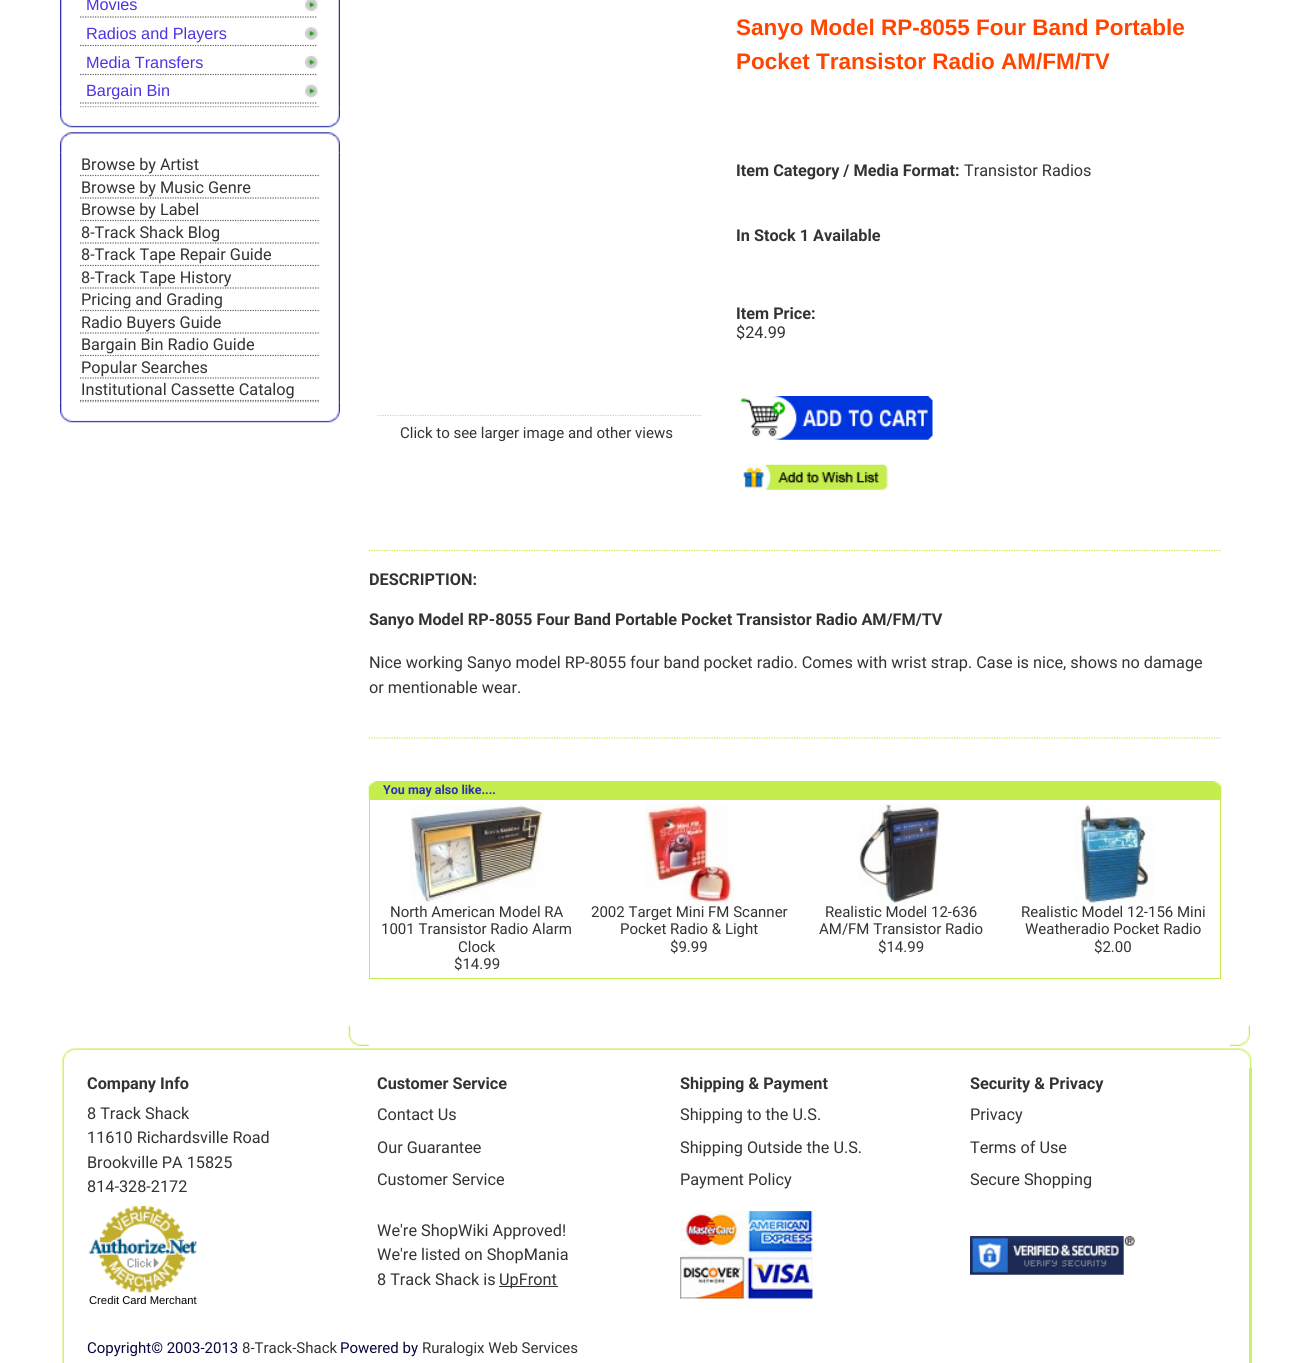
#include <cairo/cairo.h>
#include <math.h>
#include <stddef.h>


static void draw_image(cairo_t *cr, const char *path, double x, double y, double w, double h) {
  cairo_surface_t *image = cairo_image_surface_create_from_png(path);
  cairo_save(cr);
  cairo_set_source_surface(cr, image, x, y);
  cairo_rectangle(cr, x, y, w, h);
  cairo_fill(cr);
  cairo_restore(cr);
  cairo_surface_destroy(image);
}

static void draw(cairo_t *cr) {
  cairo_set_source_rgb(cr, 1, 1, 1);
  cairo_paint(cr);
  draw_image(cr, "images/1.png", 60, 0, 2, 108);
  cairo_new_path(cr);
  cairo_move_to(cr, 80, 107);
  cairo_line_to(cr, 320, 107);
  cairo_set_source_rgb(cr, 102 / 255.0, 102 / 255.0, 102 / 255.0);
  cairo_set_line_width(cr, 1.2);
  cairo_set_dash(cr, (double[]){1.25, 1.25}, 2, 0);
  cairo_stroke(cr);
  draw_image(cr, "images/2.png", 305, 0, 13, 11);
  cairo_new_path(cr);
  cairo_move_to(cr, 80, 17);
  cairo_line_to(cr, 317.5, 17);
  cairo_stroke(cr);
  draw_image(cr, "images/3.png", 305, 27, 13, 13);
  cairo_new_path(cr);
  cairo_move_to(cr, 80, 45.5);
  cairo_line_to(cr, 317.5, 45.5);
  cairo_stroke(cr);
  draw_image(cr, "images/4.png", 305, 56, 13, 13);
  cairo_new_path(cr);
  cairo_move_to(cr, 80, 74.5);
  cairo_line_to(cr, 317.5, 74.5);
  cairo_stroke(cr);
  draw_image(cr, "images/5.png", 305, 84, 13, 14);
  cairo_new_path(cr);
  cairo_move_to(cr, 80, 103);
  cairo_line_to(cr, 317.5, 103);
  cairo_stroke(cr);
  draw_image(cr, "images/6.png", 338, 0, 2, 108);
  draw_image(cr, "images/7.png", 60, 107, 20, 21);
  draw_image(cr, "images/8.png", 80, 107, 240, 21);
  draw_image(cr, "images/9.png", 320, 107, 20, 21);
  draw_image(cr, "images/13.png", 60, 152, 2, 251);
  draw_image(cr, "images/10.png", 60, 132, 20, 21);
  draw_image(cr, "images/11.png", 80, 132, 240, 2);
  draw_image(cr, "images/14.png", 338, 152, 2, 251);
  draw_image(cr, "images/12.png", 320, 132, 20, 21);
  cairo_new_path(cr);
  cairo_move_to(cr, 80, 402);
  cairo_line_to(cr, 320, 402);
  cairo_stroke(cr);
  cairo_new_path(cr);
  cairo_move_to(cr, 80, 175.5);
  cairo_line_to(cr, 320, 175.5);
  cairo_stroke(cr);
  cairo_new_path(cr);
  cairo_move_to(cr, 80, 198);
  cairo_line_to(cr, 320, 198);
  cairo_stroke(cr);
  cairo_new_path(cr);
  cairo_move_to(cr, 80, 220.5);
  cairo_line_to(cr, 320, 220.5);
  cairo_stroke(cr);
  cairo_new_path(cr);
  cairo_move_to(cr, 80, 243);
  cairo_line_to(cr, 320, 243);
  cairo_stroke(cr);
  cairo_new_path(cr);
  cairo_move_to(cr, 80, 265.5);
  cairo_line_to(cr, 320, 265.5);
  cairo_stroke(cr);
  cairo_new_path(cr);
  cairo_move_to(cr, 80, 288);
  cairo_line_to(cr, 320, 288);
  cairo_stroke(cr);
  cairo_new_path(cr);
  cairo_move_to(cr, 80, 310.5);
  cairo_line_to(cr, 320, 310.5);
  cairo_stroke(cr);
  cairo_new_path(cr);
  cairo_move_to(cr, 80, 333);
  cairo_line_to(cr, 320, 333);
  cairo_stroke(cr);
  cairo_new_path(cr);
  cairo_move_to(cr, 80, 355.5);
  cairo_line_to(cr, 320, 355.5);
  cairo_stroke(cr);
  cairo_new_path(cr);
  cairo_move_to(cr, 80, 378);
  cairo_line_to(cr, 320, 378);
  cairo_stroke(cr);
  cairo_new_path(cr);
  cairo_move_to(cr, 80, 400.5);
  cairo_line_to(cr, 320, 400.5);
  cairo_stroke(cr);
  draw_image(cr, "images/7.png", 60, 402, 20, 21);
  draw_image(cr, "images/8.png", 80, 402, 240, 21);
  draw_image(cr, "images/9.png", 320, 402, 20, 21);
  cairo_new_path(cr);
  cairo_move_to(cr, 377.5, 415.5);
  cairo_line_to(cr, 702.5, 415.5);
  cairo_set_source_rgb(cr, 197 / 255.0, 237 / 255.0, 78 / 255.0);
  cairo_stroke(cr);
  draw_image(cr, "images/15.png", 741, 396, 192, 44);
  draw_image(cr, "images/16.png", 743, 464, 145, 26);
  cairo_new_path(cr);
  cairo_move_to(cr, 369, 550.5);
  cairo_line_to(cr, 1221, 550.5);
  cairo_set_source_rgb(cr, 198 / 255.0, 237 / 255.0, 78 / 255.0);
  cairo_stroke(cr);
  cairo_new_path(cr);
  cairo_move_to(cr, 369, 738);
  cairo_line_to(cr, 1221, 738);
  cairo_stroke(cr);
  cairo_set_source_rgb(cr, 197 / 255.0, 237 / 255.0, 78 / 255.0);
  cairo_rectangle(cr, 369, 781, 852, 18);
  cairo_fill(cr);
  draw_image(cr, "images/17.png", 368, 781, 9, 18);
  draw_image(cr, "images/18.png", 1213, 781, 9, 18);
  cairo_rectangle(cr, 369.5, 799.5, 851, 179);
  cairo_set_line_width(cr, 1);
  cairo_set_dash(cr, NULL, 0, 0);
  cairo_stroke(cr);
  draw_image(cr, "images/19.png", 410, 804, 134, 100);
  draw_image(cr, "images/20.png", 645, 803, 89, 101);
  draw_image(cr, "images/21.png", 859, 803, 82, 101);
  draw_image(cr, "images/22.png", 1074, 804, 80, 100);
  draw_image(cr, "images/23.png", 348, 1026, 21, 20);
  draw_image(cr, "images/24.png", 1230, 1026, 20, 20);
  draw_image(cr, "images/26.png", 82, 1048, 1150, 2);
  draw_image(cr, "images/28.png", 62, 1068, 2, 292);
  draw_image(cr, "images/25.png", 62, 1048, 21, 21);
  cairo_set_source_rgb(cr, 204 / 255.0, 239 / 255.0, 100 / 255.0);
  cairo_rectangle(cr, 1249, 1068, 3, 295);
  cairo_fill(cr);
  draw_image(cr, "images/27.png", 1231, 1048, 21, 21);
  cairo_set_source_rgb(cr, 51 / 255.0, 51 / 255.0, 51 / 255.0);
  cairo_rectangle(cr, 499, 1286, 59, 1);
  cairo_fill(cr);
  draw_image(cr, "images/29.png", 680, 1211, 133, 88);
  draw_image(cr, "images/30.png", 970, 1236, 165, 39);
  draw_image(cr, "images/31.png", 88, 1205, 109, 88);
  draw_image(cr, "images/32.png", 62, 1359, 2, 4);
  cairo_select_font_face(cr, "Liberation Sans", CAIRO_FONT_SLANT_NORMAL, CAIRO_FONT_WEIGHT_NORMAL);
  cairo_set_font_size(cr, 16.25);
  cairo_set_source_rgb(cr, 74 / 255.0, 53 / 255.0, 227 / 255.0);
  cairo_move_to(cr, 86, 10);
  cairo_show_text(cr, "Movies");
  cairo_move_to(cr, 86, 39);
  cairo_show_text(cr, "Radios and Players");
  cairo_move_to(cr, 86, 68);
  cairo_show_text(cr, "Media Transfers");
  cairo_move_to(cr, 86, 96);
  cairo_show_text(cr, "Bargain Bin");
  cairo_select_font_face(cr, "Roboto", CAIRO_FONT_SLANT_NORMAL, CAIRO_FONT_WEIGHT_NORMAL);
  cairo_set_source_rgb(cr, 51 / 255.0, 51 / 255.0, 51 / 255.0);
  cairo_move_to(cr, 81, 170);
  cairo_show_text(cr, "Browse by Artist");
  cairo_move_to(cr, 81, 193);
  cairo_show_text(cr, "Browse by Music Genre");
  cairo_move_to(cr, 81, 215);
  cairo_show_text(cr, "Browse by Label");
  cairo_move_to(cr, 81, 238);
  cairo_show_text(cr, "8-Track Shack Blog");
  cairo_move_to(cr, 81, 260);
  cairo_show_text(cr, "8-Track Tape Repair Guide");
  cairo_move_to(cr, 81, 283);
  cairo_show_text(cr, "8-Track Tape History");
  cairo_move_to(cr, 81, 305);
  cairo_show_text(cr, "Pricing and Grading");
  cairo_move_to(cr, 81, 328);
  cairo_show_text(cr, "Radio Buyers Guide");
  cairo_move_to(cr, 81, 350);
  cairo_show_text(cr, "Bargain Bin Radio Guide");
  cairo_move_to(cr, 81, 373);
  cairo_show_text(cr, "Popular Searches");
  cairo_move_to(cr, 81, 395);
  cairo_show_text(cr, "Institutional Cassette Catalog");
  cairo_select_font_face(cr, "Liberation Sans", CAIRO_FONT_SLANT_NORMAL, CAIRO_FONT_WEIGHT_BOLD);
  cairo_set_font_size(cr, 22.5);
  cairo_set_source_rgb(cr, 1, 69 / 255.0, 0);
  cairo_move_to(cr, 736, 35);
  cairo_show_text(cr, "Sanyo Model RP-8055 Four Band Portable");
  cairo_move_to(cr, 736, 69);
  cairo_show_text(cr, "Pocket Transistor Radio AM/FM/TV");
  cairo_select_font_face(cr, "Roboto", CAIRO_FONT_SLANT_NORMAL, CAIRO_FONT_WEIGHT_NORMAL);
  cairo_set_font_size(cr, 15);
  cairo_set_source_rgb(cr, 51 / 255.0, 51 / 255.0, 51 / 255.0);
  cairo_move_to(cr, 400, 438);
  cairo_show_text(cr, "Click to see larger image and other views");
  cairo_select_font_face(cr, "Roboto", CAIRO_FONT_SLANT_NORMAL, CAIRO_FONT_WEIGHT_BOLD);
  cairo_set_font_size(cr, 16.25);
  cairo_move_to(cr, 736, 176);
  cairo_show_text(cr, "Item Category / Media Format:");
  cairo_select_font_face(cr, "Roboto", CAIRO_FONT_SLANT_NORMAL, CAIRO_FONT_WEIGHT_NORMAL);
  cairo_move_to(cr, 964, 176);
  cairo_show_text(cr, "Transistor Radios");
  cairo_select_font_face(cr, "Roboto", CAIRO_FONT_SLANT_NORMAL, CAIRO_FONT_WEIGHT_BOLD);
  cairo_move_to(cr, 736, 241);
  cairo_show_text(cr, "In Stock 1 Available");
  cairo_move_to(cr, 736, 319);
  cairo_show_text(cr, "Item Price:");
  cairo_select_font_face(cr, "Roboto", CAIRO_FONT_SLANT_NORMAL, CAIRO_FONT_WEIGHT_NORMAL);
  cairo_move_to(cr, 736, 338);
  cairo_show_text(cr, "$24.99");
  cairo_select_font_face(cr, "Roboto", CAIRO_FONT_SLANT_NORMAL, CAIRO_FONT_WEIGHT_BOLD);
  cairo_move_to(cr, 369, 585);
  cairo_show_text(cr, "DESCRIPTION:");
  cairo_move_to(cr, 369, 625);
  cairo_show_text(cr, "Sanyo Model RP-8055 Four Band Portable Pocket Transistor Radio AM/FM/TV");
  cairo_select_font_face(cr, "Roboto", CAIRO_FONT_SLANT_NORMAL, CAIRO_FONT_WEIGHT_NORMAL);
  cairo_move_to(cr, 369, 668);
  cairo_show_text(cr, "Nice working Sanyo model RP-8055 four band pocket radio. Comes with wrist strap. Case is nice, shows no damage");
  cairo_move_to(cr, 369, 693);
  cairo_show_text(cr, "or mentionable wear.");
  cairo_select_font_face(cr, "Roboto", CAIRO_FONT_SLANT_NORMAL, CAIRO_FONT_WEIGHT_BOLD);
  cairo_set_font_size(cr, 12.5);
  cairo_set_source_rgb(cr, 43 / 255.0, 51 / 255.0, 172 / 255.0);
  cairo_move_to(cr, 383, 794);
  cairo_show_text(cr, "You may also like....");
  cairo_select_font_face(cr, "Roboto", CAIRO_FONT_SLANT_NORMAL, CAIRO_FONT_WEIGHT_NORMAL);
  cairo_set_font_size(cr, 15);
  cairo_set_source_rgb(cr, 51 / 255.0, 51 / 255.0, 51 / 255.0);
  cairo_move_to(cr, 390, 917);
  cairo_show_text(cr, "North American Model RA");
  cairo_move_to(cr, 381, 934);
  cairo_show_text(cr, "1001 Transistor Radio Alarm");
  cairo_move_to(cr, 458, 952);
  cairo_show_text(cr, "Clock");
  cairo_move_to(cr, 454, 969);
  cairo_show_text(cr, "$14.99");
  cairo_move_to(cr, 591, 917);
  cairo_show_text(cr, "2002 Target Mini FM Scanner");
  cairo_move_to(cr, 620, 934);
  cairo_show_text(cr, "Pocket Radio & Light");
  cairo_move_to(cr, 670, 952);
  cairo_show_text(cr, "$9.99");
  cairo_move_to(cr, 825, 917);
  cairo_show_text(cr, "Realistic Model 12-636");
  cairo_move_to(cr, 819, 934);
  cairo_show_text(cr, "AM/FM Transistor Radio");
  cairo_move_to(cr, 878, 952);
  cairo_show_text(cr, "$14.99");
  cairo_move_to(cr, 1021, 917);
  cairo_show_text(cr, "Realistic Model 12-156 Mini");
  cairo_move_to(cr, 1025, 934);
  cairo_show_text(cr, "Weatheradio Pocket Radio");
  cairo_move_to(cr, 1094, 952);
  cairo_show_text(cr, "$2.00");
  cairo_select_font_face(cr, "Roboto", CAIRO_FONT_SLANT_NORMAL, CAIRO_FONT_WEIGHT_BOLD);
  cairo_set_font_size(cr, 16.25);
  cairo_move_to(cr, 87, 1089);
  cairo_show_text(cr, "Company Info");
  cairo_move_to(cr, 377, 1089);
  cairo_show_text(cr, "Customer Service");
  cairo_move_to(cr, 680, 1089);
  cairo_show_text(cr, "Shipping & Payment");
  cairo_move_to(cr, 970, 1089);
  cairo_show_text(cr, "Security & Privacy");
  cairo_select_font_face(cr, "Roboto", CAIRO_FONT_SLANT_NORMAL, CAIRO_FONT_WEIGHT_NORMAL);
  cairo_move_to(cr, 87, 1119);
  cairo_show_text(cr, "8 Track Shack");
  cairo_move_to(cr, 87, 1143);
  cairo_show_text(cr, "11610 Richardsville Road");
  cairo_move_to(cr, 87, 1168);
  cairo_show_text(cr, "Brookville PA 15825");
  cairo_move_to(cr, 87, 1192);
  cairo_show_text(cr, "814-328-2172");
  cairo_move_to(cr, 377, 1120);
  cairo_show_text(cr, "Contact Us");
  cairo_move_to(cr, 680, 1120);
  cairo_show_text(cr, "Shipping to the U.S.");
  cairo_move_to(cr, 970, 1120);
  cairo_show_text(cr, "Privacy");
  cairo_move_to(cr, 377, 1153);
  cairo_show_text(cr, "Our Guarantee");
  cairo_move_to(cr, 680, 1153);
  cairo_show_text(cr, "Shipping Outside the U.S.");
  cairo_move_to(cr, 970, 1153);
  cairo_show_text(cr, "Terms of Use");
  cairo_move_to(cr, 377, 1185);
  cairo_show_text(cr, "Customer Service");
  cairo_move_to(cr, 680, 1185);
  cairo_show_text(cr, "Payment Policy");
  cairo_move_to(cr, 970, 1185);
  cairo_show_text(cr, "Secure Shopping");
  cairo_move_to(cr, 377, 1236);
  cairo_show_text(cr, "We're ShopWiki Approved!");
  cairo_move_to(cr, 377, 1260);
  cairo_show_text(cr, "We're listed on ShopMania");
  cairo_move_to(cr, 377, 1285);
  cairo_show_text(cr, "8 Track Shack is");
  cairo_move_to(cr, 499, 1285);
  cairo_show_text(cr, "UpFront");
  cairo_select_font_face(cr, "Liberation Sans", CAIRO_FONT_SLANT_NORMAL, CAIRO_FONT_WEIGHT_NORMAL);
  cairo_set_font_size(cr, 11.25);
  cairo_set_source_rgb(cr, 0, 0, 0);
  cairo_move_to(cr, 89, 1304);
  cairo_show_text(cr, "Credit Card Merchant");
  cairo_select_font_face(cr, "Roboto", CAIRO_FONT_SLANT_NORMAL, CAIRO_FONT_WEIGHT_NORMAL);
  cairo_set_font_size(cr, 15);
  cairo_set_source_rgb(cr, 6 / 255.0, 6 / 255.0, 62 / 255.0);
  cairo_move_to(cr, 87, 1353);
  cairo_show_text(cr, "Copyright© 2003-2013");
  cairo_set_source_rgb(cr, 51 / 255.0, 51 / 255.0, 51 / 255.0);
  cairo_move_to(cr, 242, 1353);
  cairo_show_text(cr, "8-Track-Shack");
  cairo_set_source_rgb(cr, 6 / 255.0, 6 / 255.0, 62 / 255.0);
  cairo_move_to(cr, 340, 1353);
  cairo_show_text(cr, "Powered by");
  cairo_set_source_rgb(cr, 51 / 255.0, 51 / 255.0, 51 / 255.0);
  cairo_move_to(cr, 422, 1353);
  cairo_show_text(cr, "Ruralogix Web Services");
}

int main(void) {
  cairo_surface_t *surface = cairo_image_surface_create(CAIRO_FORMAT_RGB24, 1313, 1363);
  cairo_t *cr = cairo_create(surface);
  cairo_font_options_t *options = cairo_font_options_create();
  cairo_font_options_set_hint_metrics(options, CAIRO_HINT_METRICS_OFF);
  cairo_font_options_set_hint_style(options, CAIRO_HINT_STYLE_NONE);
  cairo_set_font_options(cr, options);
  cairo_set_miter_limit(cr, 4);
  draw(cr);
  cairo_surface_write_to_png(surface, "out.png");
  cairo_font_options_destroy(options);
  cairo_destroy(cr);
  cairo_surface_destroy(surface);
  return 0;
}
